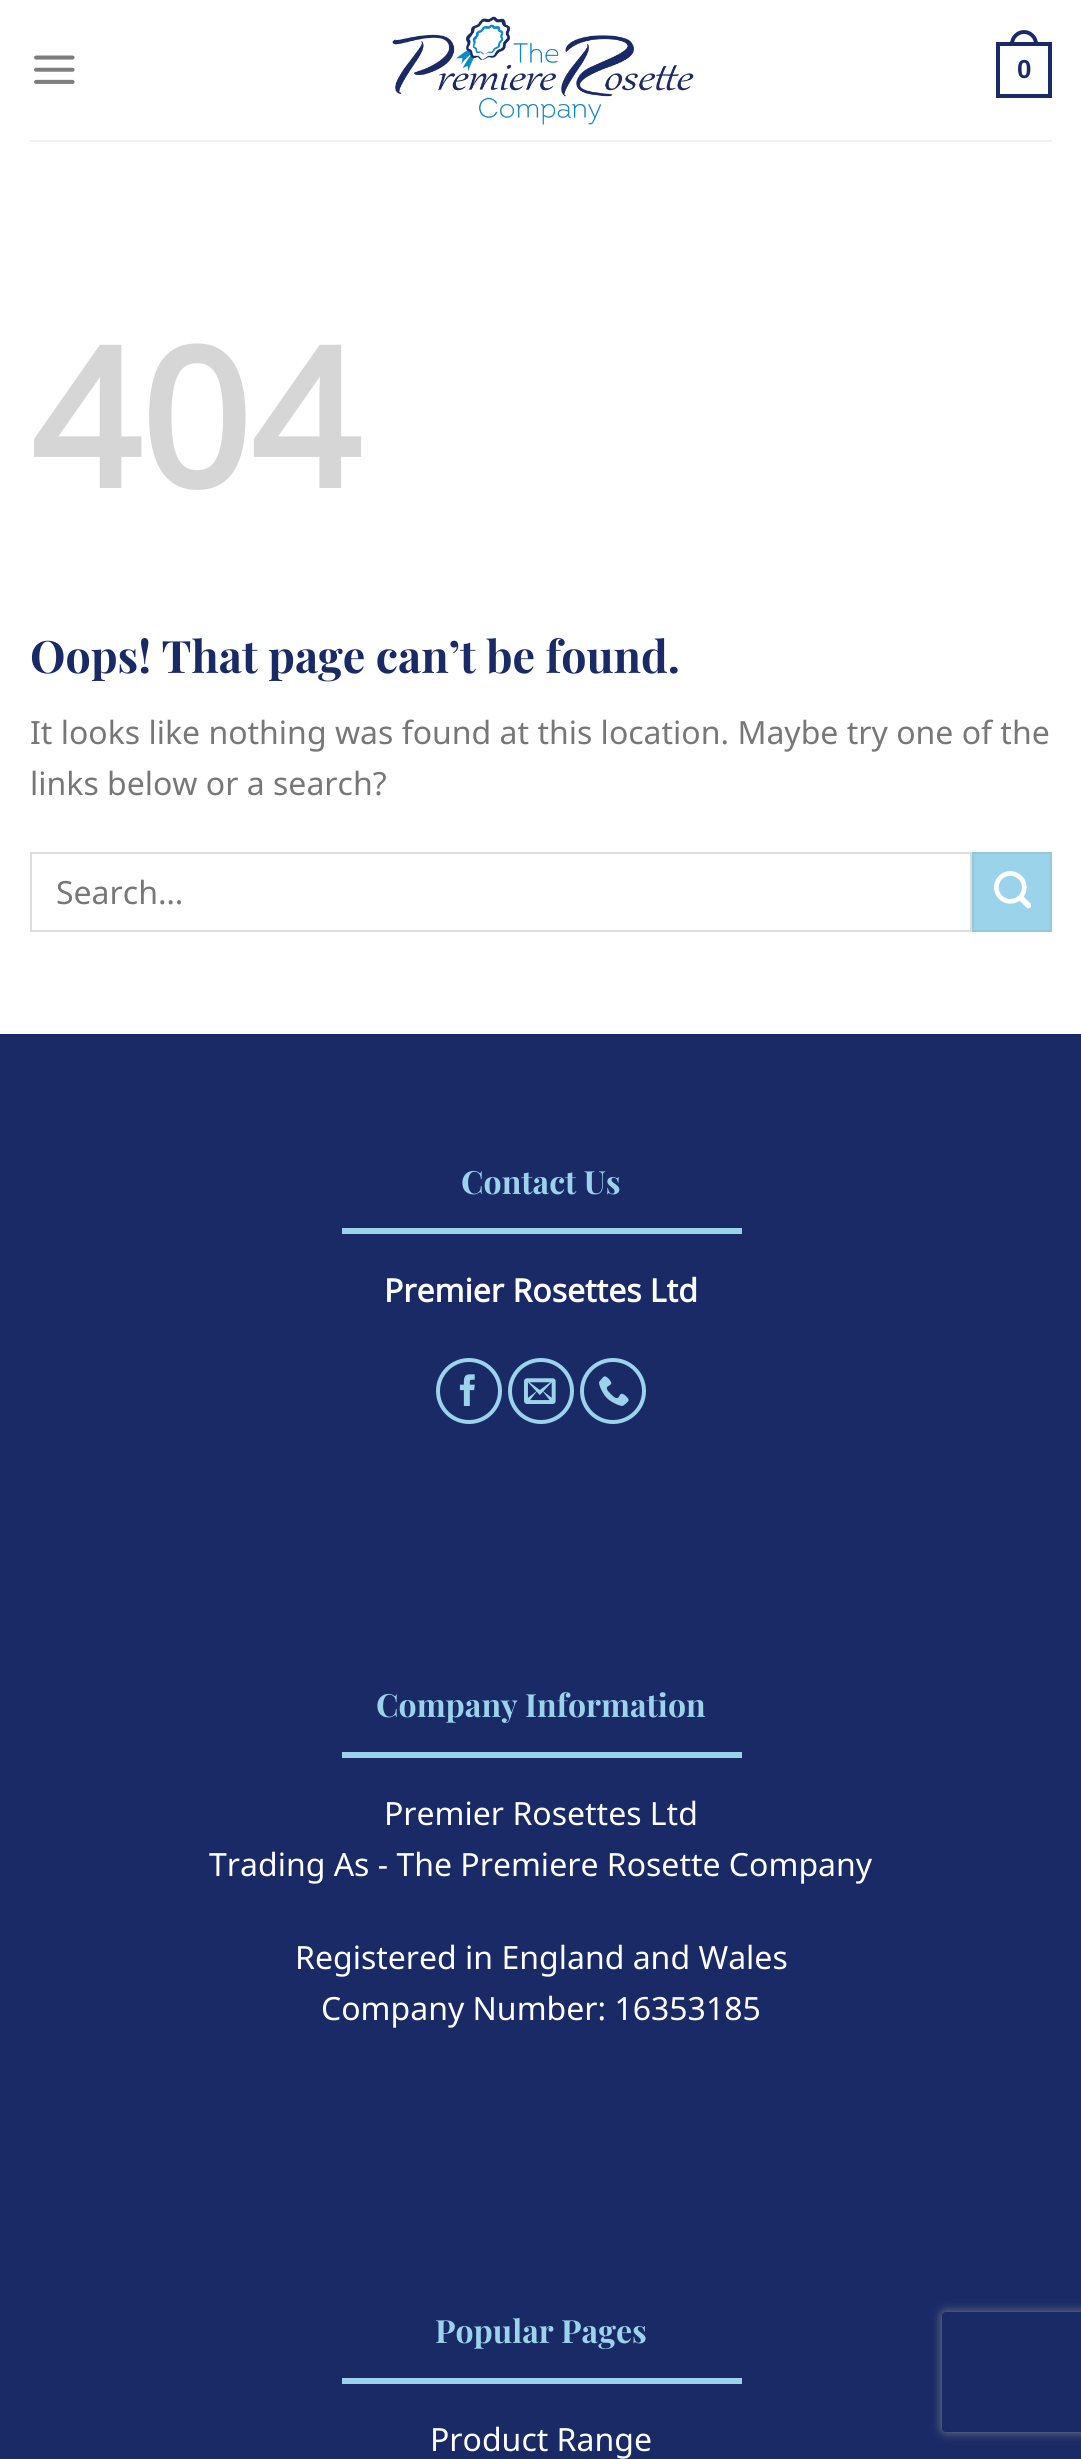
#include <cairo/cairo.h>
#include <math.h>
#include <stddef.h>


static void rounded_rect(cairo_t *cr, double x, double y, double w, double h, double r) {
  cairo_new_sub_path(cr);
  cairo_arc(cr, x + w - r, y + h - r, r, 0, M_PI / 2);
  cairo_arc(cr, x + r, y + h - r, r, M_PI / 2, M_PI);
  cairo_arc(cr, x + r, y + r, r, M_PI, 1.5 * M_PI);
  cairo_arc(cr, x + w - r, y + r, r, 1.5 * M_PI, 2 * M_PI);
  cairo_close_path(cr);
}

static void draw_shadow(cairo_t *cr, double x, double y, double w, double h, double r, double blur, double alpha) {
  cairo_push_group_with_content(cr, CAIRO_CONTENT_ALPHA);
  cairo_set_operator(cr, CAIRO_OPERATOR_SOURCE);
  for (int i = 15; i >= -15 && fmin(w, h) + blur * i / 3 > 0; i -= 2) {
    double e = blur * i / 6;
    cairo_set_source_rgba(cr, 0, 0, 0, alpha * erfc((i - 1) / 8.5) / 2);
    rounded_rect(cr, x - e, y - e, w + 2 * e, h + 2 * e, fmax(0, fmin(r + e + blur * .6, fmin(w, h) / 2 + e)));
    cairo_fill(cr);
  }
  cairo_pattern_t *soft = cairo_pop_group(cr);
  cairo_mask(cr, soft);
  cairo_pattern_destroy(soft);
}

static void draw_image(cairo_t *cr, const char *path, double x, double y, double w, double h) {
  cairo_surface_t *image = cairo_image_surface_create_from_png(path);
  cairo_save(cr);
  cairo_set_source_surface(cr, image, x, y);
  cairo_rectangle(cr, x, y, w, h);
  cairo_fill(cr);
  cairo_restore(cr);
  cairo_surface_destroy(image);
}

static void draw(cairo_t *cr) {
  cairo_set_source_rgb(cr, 1, 1, 1);
  cairo_paint(cr);
  draw_image(cr, "images/1.png", 34, 55, 41, 29);
  draw_image(cr, "images/2.png", 392, 16, 302, 109);
  cairo_rectangle(cr, 998, 44, 52, 52);
  cairo_set_source_rgb(cr, 25 / 255.0, 42 / 255.0, 103 / 255.0);
  cairo_set_line_width(cr, 4);
  cairo_stroke(cr);
  cairo_set_fill_rule(cr, CAIRO_FILL_RULE_EVEN_ODD);
  cairo_new_path(cr);
  cairo_move_to(cr, 1024, 30);
  cairo_curve_to(cr, 1031.5, 30, 1038, 36.5, 1038, 44);
  cairo_line_to(cr, 1038, 46);
  cairo_line_to(cr, 1010, 46);
  cairo_line_to(cr, 1010, 44);
  cairo_curve_to(cr, 1010, 36.5, 1016.5, 30, 1024, 30);
  cairo_close_path(cr);
  cairo_move_to(cr, 1024, 34);
  cairo_curve_to(cr, 1029.5, 34, 1034, 38.5, 1034, 44);
  cairo_line_to(cr, 1034, 46);
  cairo_line_to(cr, 1014, 46);
  cairo_line_to(cr, 1014, 44);
  cairo_curve_to(cr, 1014, 38.5, 1018.5, 34, 1024, 34);
  cairo_close_path(cr);
  cairo_fill(cr);
  cairo_set_source_rgb(cr, 241 / 255.0, 241 / 255.0, 241 / 255.0);
  cairo_rectangle(cr, 30, 140, 1022, 2);
  cairo_fill(cr);
  cairo_rectangle(cr, 31, 853, 940, 78);
  cairo_set_source_rgb(cr, 221 / 255.0, 221 / 255.0, 221 / 255.0);
  cairo_set_line_width(cr, 2);
  cairo_stroke(cr);
  cairo_set_source_rgb(cr, 155 / 255.0, 211 / 255.0, 235 / 255.0);
  cairo_rectangle(cr, 973, 853, 78, 78);
  cairo_fill_preserve(cr);
  cairo_set_source_rgb(cr, 147 / 255.0, 200 / 255.0, 223 / 255.0);
  cairo_stroke(cr);
  draw_image(cr, "images/3.png", 994, 871, 38, 38);
  cairo_set_source_rgb(cr, 25 / 255.0, 42 / 255.0, 103 / 255.0);
  cairo_rectangle(cr, 0, 1036, 1081, 1423);
  cairo_fill(cr);
  cairo_set_source_rgb(cr, 24 / 255.0, 40 / 255.0, 98 / 255.0);
  cairo_rectangle(cr, 0, 1034, 1081, 2);
  cairo_fill(cr);
  cairo_set_source_rgb(cr, 155 / 255.0, 211 / 255.0, 235 / 255.0);
  cairo_rectangle(cr, 342, 1228, 400, 6);
  cairo_fill(cr);
  cairo_arc(cr, 469, 1391, 31, 0, 2 * M_PI);
  cairo_set_line_width(cr, 4);
  cairo_stroke(cr);
  draw_image(cr, "images/4.png", 459, 1374, 16, 32);
  cairo_arc(cr, 541, 1391, 31, 0, 2 * M_PI);
  cairo_stroke(cr);
  draw_image(cr, "images/5.png", 524, 1378, 32, 26);
  cairo_arc(cr, 613, 1391, 31, 0, 2 * M_PI);
  cairo_stroke(cr);
  draw_image(cr, "images/6.png", 599, 1376, 30, 30);
  cairo_rectangle(cr, 342, 1752, 400, 6);
  cairo_fill(cr);
  cairo_rectangle(cr, 342, 2378, 400, 6);
  cairo_fill(cr);
  cairo_save(cr);
  cairo_new_path(cr);
  cairo_move_to(cr, 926, 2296);
  cairo_line_to(cr, 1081, 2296);
  cairo_line_to(cr, 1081, 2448);
  cairo_line_to(cr, 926, 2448);
  cairo_close_path(cr);
  cairo_move_to(cr, 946, 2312);
  cairo_line_to(cr, 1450, 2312);
  cairo_curve_to(cr, 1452, 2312, 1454, 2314, 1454, 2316);
  cairo_line_to(cr, 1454, 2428);
  cairo_curve_to(cr, 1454, 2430, 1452, 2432, 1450, 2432);
  cairo_line_to(cr, 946, 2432);
  cairo_curve_to(cr, 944, 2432, 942, 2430, 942, 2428);
  cairo_line_to(cr, 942, 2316);
  cairo_curve_to(cr, 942, 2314, 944, 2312, 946, 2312);
  cairo_close_path(cr);
  cairo_clip(cr);
  cairo_set_source_rgb(cr, 128 / 255.0, 128 / 255.0, 128 / 255.0);
  draw_shadow(cr, 942, 2312, 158, 120, 4, 5, 1);
  cairo_restore(cr);
  cairo_select_font_face(cr, "Liberation Sans", CAIRO_FONT_SLANT_NORMAL, CAIRO_FONT_WEIGHT_BOLD);
  cairo_set_font_size(cr, 26);
  cairo_set_source_rgb(cr, 25 / 255.0, 42 / 255.0, 103 / 255.0);
  cairo_move_to(cr, 1017, 78);
  cairo_show_text(cr, "0");
  cairo_select_font_face(cr, "Noto Sans", CAIRO_FONT_SLANT_NORMAL, CAIRO_FONT_WEIGHT_BOLD);
  cairo_set_font_size(cr, 192);
  cairo_set_source_rgb(cr, 214 / 255.0, 214 / 255.0, 214 / 255.0);
  cairo_move_to(cr, 30, 488);
  cairo_show_text(cr, "404");
  cairo_select_font_face(cr, "Playfair Display", CAIRO_FONT_SLANT_NORMAL, CAIRO_FONT_WEIGHT_BOLD);
  cairo_set_font_size(cr, 44.75);
  cairo_set_source_rgb(cr, 25 / 255.0, 42 / 255.0, 103 / 255.0);
  cairo_move_to(cr, 30, 673);
  cairo_show_text(cr, "Oops! That page can’t be found.");
  cairo_select_font_face(cr, "Noto Sans", CAIRO_FONT_SLANT_NORMAL, CAIRO_FONT_WEIGHT_NORMAL);
  cairo_set_font_size(cr, 32);
  cairo_set_source_rgb(cr, 119 / 255.0, 119 / 255.0, 119 / 255.0);
  cairo_move_to(cr, 30, 744);
  cairo_show_text(cr, "It looks like nothing was found at this location. Maybe try one of the");
  cairo_move_to(cr, 30, 795);
  cairo_show_text(cr, "links below or a search?");
  cairo_move_to(cr, 56, 904);
  cairo_show_text(cr, "Search…");
  cairo_select_font_face(cr, "Playfair Display", CAIRO_FONT_SLANT_NORMAL, CAIRO_FONT_WEIGHT_BOLD);
  cairo_set_source_rgb(cr, 155 / 255.0, 211 / 255.0, 235 / 255.0);
  cairo_move_to(cr, 461, 1194);
  cairo_show_text(cr, "Contact Us");
  cairo_select_font_face(cr, "Noto Sans", CAIRO_FONT_SLANT_NORMAL, CAIRO_FONT_WEIGHT_BOLD);
  cairo_set_source_rgb(cr, 1, 1, 1);
  cairo_move_to(cr, 384, 1302);
  cairo_show_text(cr, "Premier Rosettes Ltd");
  cairo_select_font_face(cr, "Playfair Display", CAIRO_FONT_SLANT_NORMAL, CAIRO_FONT_WEIGHT_BOLD);
  cairo_set_source_rgb(cr, 155 / 255.0, 211 / 255.0, 235 / 255.0);
  cairo_move_to(cr, 376, 1717);
  cairo_show_text(cr, "Company Information");
  cairo_select_font_face(cr, "Noto Sans", CAIRO_FONT_SLANT_NORMAL, CAIRO_FONT_WEIGHT_NORMAL);
  cairo_set_source_rgb(cr, 1, 1, 1);
  cairo_move_to(cr, 384, 1825);
  cairo_show_text(cr, "Premier Rosettes Ltd");
  cairo_move_to(cr, 209, 1876);
  cairo_show_text(cr, "Trading As - The Premiere Rosette Company");
  cairo_move_to(cr, 295, 1969);
  cairo_show_text(cr, "Registered in England and Wales");
  cairo_move_to(cr, 321, 2020);
  cairo_show_text(cr, "Company Number: 16353185");
  cairo_select_font_face(cr, "Playfair Display", CAIRO_FONT_SLANT_NORMAL, CAIRO_FONT_WEIGHT_BOLD);
  cairo_set_source_rgb(cr, 155 / 255.0, 211 / 255.0, 235 / 255.0);
  cairo_move_to(cr, 435, 2343);
  cairo_show_text(cr, "Popular Pages");
  cairo_select_font_face(cr, "Noto Sans", CAIRO_FONT_SLANT_NORMAL, CAIRO_FONT_WEIGHT_NORMAL);
  cairo_set_source_rgb(cr, 1, 1, 1);
  cairo_move_to(cr, 430, 2451);
  cairo_show_text(cr, "Product Range");
}

int main(void) {
  cairo_surface_t *surface = cairo_image_surface_create(CAIRO_FORMAT_RGB24, 1081, 2459);
  cairo_t *cr = cairo_create(surface);
  cairo_font_options_t *options = cairo_font_options_create();
  cairo_font_options_set_hint_metrics(options, CAIRO_HINT_METRICS_OFF);
  cairo_font_options_set_hint_style(options, CAIRO_HINT_STYLE_NONE);
  cairo_set_font_options(cr, options);
  cairo_set_miter_limit(cr, 4);
  draw(cr);
  cairo_surface_write_to_png(surface, "out.png");
  cairo_font_options_destroy(options);
  cairo_destroy(cr);
  cairo_surface_destroy(surface);
  return 0;
}
